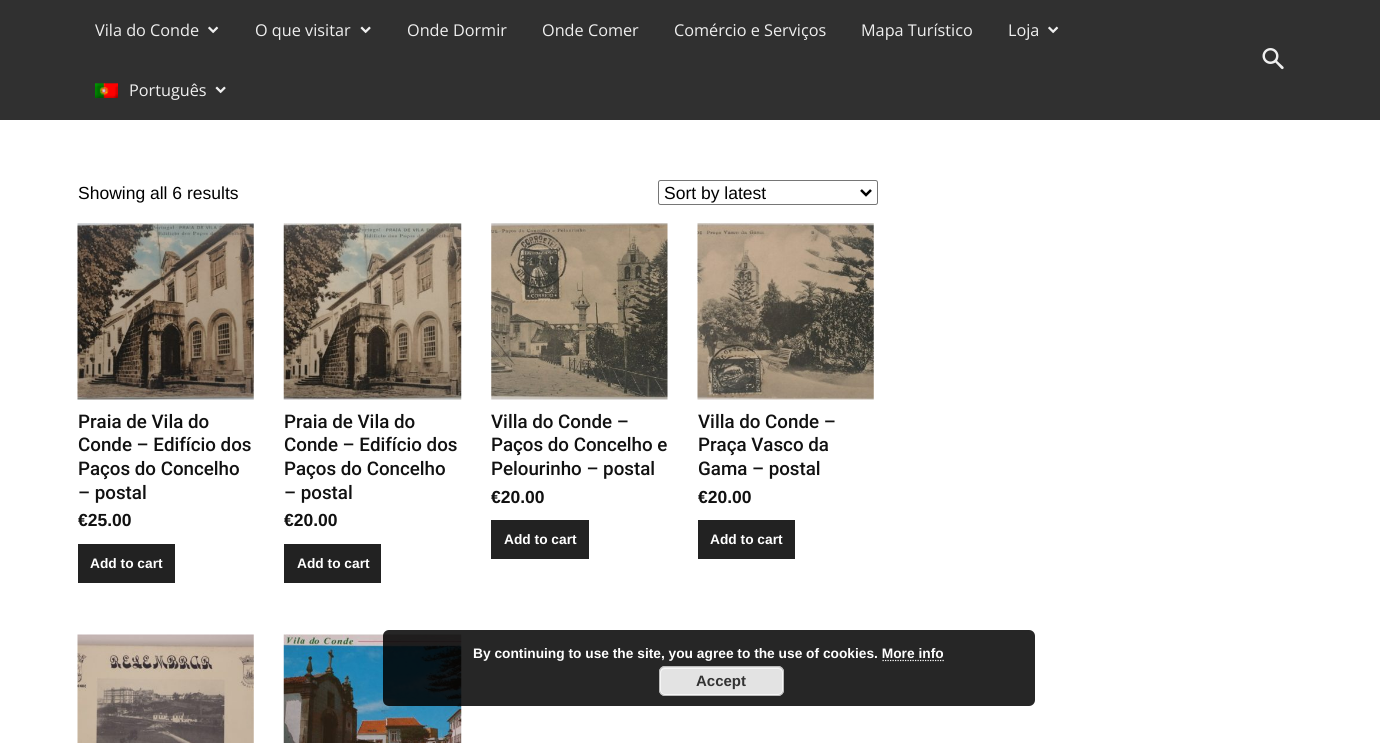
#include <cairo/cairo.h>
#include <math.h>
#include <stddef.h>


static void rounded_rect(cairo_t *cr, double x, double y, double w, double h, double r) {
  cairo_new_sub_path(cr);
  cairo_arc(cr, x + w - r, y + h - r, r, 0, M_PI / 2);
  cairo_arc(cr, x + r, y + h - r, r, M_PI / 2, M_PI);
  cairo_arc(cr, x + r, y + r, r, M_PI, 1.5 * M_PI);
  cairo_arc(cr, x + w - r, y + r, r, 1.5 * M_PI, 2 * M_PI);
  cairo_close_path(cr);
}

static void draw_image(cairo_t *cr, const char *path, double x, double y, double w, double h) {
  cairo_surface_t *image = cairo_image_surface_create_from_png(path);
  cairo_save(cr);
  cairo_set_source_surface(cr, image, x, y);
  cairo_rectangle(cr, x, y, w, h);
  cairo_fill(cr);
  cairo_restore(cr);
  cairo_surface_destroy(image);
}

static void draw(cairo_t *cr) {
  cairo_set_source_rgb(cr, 1, 1, 1);
  cairo_paint(cr);
  cairo_set_source_rgb(cr, 48 / 255.0, 48 / 255.0, 48 / 255.0);
  cairo_rectangle(cr, 0, 0, 1380, 120);
  cairo_fill(cr);
  draw_image(cr, "images/1.png", 208, 26, 11, 8);
  draw_image(cr, "images/2.png", 360, 26, 11, 8);
  draw_image(cr, "images/1.png", 1048, 26, 11, 8);
  draw_image(cr, "images/3.png", 95, 83, 23, 15);
  draw_image(cr, "images/2.png", 215, 86, 11, 8);
  draw_image(cr, "images/4.png", 1262, 48, 22, 22);
  rounded_rect(cr, 658.5, 180.5, 219, 24, 2);
  cairo_set_source_rgb(cr, 118 / 255.0, 118 / 255.0, 118 / 255.0);
  cairo_set_line_width(cr, 1);
  cairo_stroke(cr);
  cairo_new_path(cr);
  cairo_move_to(cr, 861, 190);
  cairo_line_to(cr, 866, 195);
  cairo_line_to(cr, 871, 190);
  cairo_set_source_rgb(cr, 0, 0, 0);
  cairo_set_line_width(cr, 2.5);
  cairo_stroke(cr);
  draw_image(cr, "images/5.png", 77, 223, 177, 177);
  cairo_set_source_rgb(cr, 34 / 255.0, 34 / 255.0, 34 / 255.0);
  cairo_rectangle(cr, 78, 544, 97, 39);
  cairo_fill(cr);
  draw_image(cr, "images/6.png", 283, 223, 179, 177);
  cairo_rectangle(cr, 284, 544, 97, 39);
  cairo_fill(cr);
  draw_image(cr, "images/7.png", 491, 223, 177, 177);
  cairo_rectangle(cr, 491, 520, 98, 39);
  cairo_fill(cr);
  draw_image(cr, "images/8.png", 697, 223, 177, 177);
  cairo_rectangle(cr, 698, 520, 97, 39);
  cairo_fill(cr);
  draw_image(cr, "images/9.png", 77, 634, 177, 109);
  draw_image(cr, "images/10.png", 283, 634, 179, 109);
  cairo_set_source_rgba(cr, 0, 0, 0, 0.85);
  rounded_rect(cr, 383, 630, 652, 76, 6);
  cairo_fill(cr);
  cairo_new_path(cr);
  cairo_move_to(cr, 882.5, 660.5);
  cairo_line_to(cr, 944, 660.5);
  cairo_set_source_rgb(cr, 1, 1, 1);
  cairo_set_line_width(cr, 1.2);
  cairo_set_dash(cr, (double[]){1.25, 1.25}, 2, 0);
  cairo_stroke(cr);
  cairo_set_source_rgb(cr, 227 / 255.0, 227 / 255.0, 227 / 255.0);
  rounded_rect(cr, 659, 666, 125, 30, 6);
  cairo_fill(cr);
  rounded_rect(cr, 660.5, 668.5, 122, 26, 4.5);
  cairo_set_source_rgb(cr, 246 / 255.0, 246 / 255.0, 246 / 255.0);
  cairo_set_line_width(cr, 1);
  cairo_set_dash(cr, NULL, 0, 0);
  cairo_stroke(cr);
  rounded_rect(cr, 659.5, 666.5, 124, 29, 5.5);
  cairo_set_source_rgb(cr, 187 / 255.0, 187 / 255.0, 187 / 255.0);
  cairo_stroke(cr);
  cairo_select_font_face(cr, "Open Sans", CAIRO_FONT_SLANT_NORMAL, CAIRO_FONT_WEIGHT_NORMAL);
  cairo_set_font_size(cr, 16.25);
  cairo_set_source_rgb(cr, 239 / 255.0, 239 / 255.0, 239 / 255.0);
  cairo_move_to(cr, 95, 36);
  cairo_show_text(cr, "Vila do Conde");
  cairo_move_to(cr, 255, 36);
  cairo_show_text(cr, "O que visitar");
  cairo_move_to(cr, 407, 36);
  cairo_show_text(cr, "Onde Dormir");
  cairo_move_to(cr, 542, 36);
  cairo_show_text(cr, "Onde Comer");
  cairo_move_to(cr, 674, 36);
  cairo_show_text(cr, "Comércio e Serviços");
  cairo_move_to(cr, 861, 36);
  cairo_show_text(cr, "Mapa Turístico");
  cairo_move_to(cr, 1008, 36);
  cairo_show_text(cr, "Loja");
  cairo_move_to(cr, 129, 96);
  cairo_show_text(cr, "Português");
  cairo_select_font_face(cr, "Liberation Sans", CAIRO_FONT_SLANT_NORMAL, CAIRO_FONT_WEIGHT_NORMAL);
  cairo_set_font_size(cr, 17.5);
  cairo_set_source_rgb(cr, 0, 0, 0);
  cairo_move_to(cr, 78, 199);
  cairo_show_text(cr, "Showing all 6 results");
  cairo_move_to(cr, 664, 199);
  cairo_show_text(cr, "Sort by latest");
  cairo_select_font_face(cr, "Roboto Medium", CAIRO_FONT_SLANT_NORMAL, CAIRO_FONT_WEIGHT_NORMAL);
  cairo_set_font_size(cr, 18.75);
  cairo_set_source_rgb(cr, 17 / 255.0, 17 / 255.0, 17 / 255.0);
  cairo_move_to(cr, 78, 428);
  cairo_show_text(cr, "Praia de Vila do");
  cairo_move_to(cr, 78, 451);
  cairo_show_text(cr, "Conde – Edifício dos");
  cairo_move_to(cr, 78, 475);
  cairo_show_text(cr, "Paços do Concelho");
  cairo_move_to(cr, 78, 499);
  cairo_show_text(cr, "– postal");
  cairo_select_font_face(cr, "Liberation Sans", CAIRO_FONT_SLANT_NORMAL, CAIRO_FONT_WEIGHT_BOLD);
  cairo_set_font_size(cr, 17.5);
  cairo_move_to(cr, 78, 526);
  cairo_show_text(cr, "€25.00");
  cairo_set_font_size(cr, 13.75);
  cairo_set_source_rgb(cr, 1, 1, 1);
  cairo_move_to(cr, 90, 568);
  cairo_show_text(cr, "Add to cart");
  cairo_select_font_face(cr, "Roboto Medium", CAIRO_FONT_SLANT_NORMAL, CAIRO_FONT_WEIGHT_NORMAL);
  cairo_set_font_size(cr, 18.75);
  cairo_set_source_rgb(cr, 17 / 255.0, 17 / 255.0, 17 / 255.0);
  cairo_move_to(cr, 284, 428);
  cairo_show_text(cr, "Praia de Vila do");
  cairo_move_to(cr, 284, 451);
  cairo_show_text(cr, "Conde – Edifício dos");
  cairo_move_to(cr, 284, 475);
  cairo_show_text(cr, "Paços do Concelho");
  cairo_move_to(cr, 284, 499);
  cairo_show_text(cr, "– postal");
  cairo_select_font_face(cr, "Liberation Sans", CAIRO_FONT_SLANT_NORMAL, CAIRO_FONT_WEIGHT_BOLD);
  cairo_set_font_size(cr, 17.5);
  cairo_move_to(cr, 284, 526);
  cairo_show_text(cr, "€20.00");
  cairo_set_font_size(cr, 13.75);
  cairo_set_source_rgb(cr, 1, 1, 1);
  cairo_move_to(cr, 297, 568);
  cairo_show_text(cr, "Add to cart");
  cairo_select_font_face(cr, "Roboto Medium", CAIRO_FONT_SLANT_NORMAL, CAIRO_FONT_WEIGHT_NORMAL);
  cairo_set_font_size(cr, 18.75);
  cairo_set_source_rgb(cr, 17 / 255.0, 17 / 255.0, 17 / 255.0);
  cairo_move_to(cr, 491, 428);
  cairo_show_text(cr, "Villa do Conde –");
  cairo_move_to(cr, 491, 451);
  cairo_show_text(cr, "Paços do Concelho e");
  cairo_move_to(cr, 491, 475);
  cairo_show_text(cr, "Pelourinho – postal");
  cairo_select_font_face(cr, "Liberation Sans", CAIRO_FONT_SLANT_NORMAL, CAIRO_FONT_WEIGHT_BOLD);
  cairo_set_font_size(cr, 17.5);
  cairo_move_to(cr, 491, 503);
  cairo_show_text(cr, "€20.00");
  cairo_set_font_size(cr, 13.75);
  cairo_set_source_rgb(cr, 1, 1, 1);
  cairo_move_to(cr, 504, 544);
  cairo_show_text(cr, "Add to cart");
  cairo_select_font_face(cr, "Roboto Medium", CAIRO_FONT_SLANT_NORMAL, CAIRO_FONT_WEIGHT_NORMAL);
  cairo_set_font_size(cr, 18.75);
  cairo_set_source_rgb(cr, 17 / 255.0, 17 / 255.0, 17 / 255.0);
  cairo_move_to(cr, 698, 428);
  cairo_show_text(cr, "Villa do Conde –");
  cairo_move_to(cr, 698, 451);
  cairo_show_text(cr, "Praça Vasco da");
  cairo_move_to(cr, 698, 475);
  cairo_show_text(cr, "Gama – postal");
  cairo_select_font_face(cr, "Liberation Sans", CAIRO_FONT_SLANT_NORMAL, CAIRO_FONT_WEIGHT_BOLD);
  cairo_set_font_size(cr, 17.5);
  cairo_move_to(cr, 698, 503);
  cairo_show_text(cr, "€20.00");
  cairo_set_font_size(cr, 13.75);
  cairo_set_source_rgb(cr, 1, 1, 1);
  cairo_move_to(cr, 710, 544);
  cairo_show_text(cr, "Add to cart");
  cairo_move_to(cr, 473, 658);
  cairo_show_text(cr, "By continuing to use the site, you agree to the use of cookies. More info");
  cairo_set_font_size(cr, 15);
  cairo_set_source_rgb(cr, 51 / 255.0, 51 / 255.0, 51 / 255.0);
  cairo_move_to(cr, 696, 686);
  cairo_show_text(cr, "Accept");
}

int main(void) {
  cairo_surface_t *surface = cairo_image_surface_create(CAIRO_FORMAT_RGB24, 1380, 743);
  cairo_t *cr = cairo_create(surface);
  cairo_font_options_t *options = cairo_font_options_create();
  cairo_font_options_set_hint_metrics(options, CAIRO_HINT_METRICS_OFF);
  cairo_font_options_set_hint_style(options, CAIRO_HINT_STYLE_NONE);
  cairo_set_font_options(cr, options);
  cairo_set_miter_limit(cr, 4);
  draw(cr);
  cairo_surface_write_to_png(surface, "out.png");
  cairo_font_options_destroy(options);
  cairo_destroy(cr);
  cairo_surface_destroy(surface);
  return 0;
}
